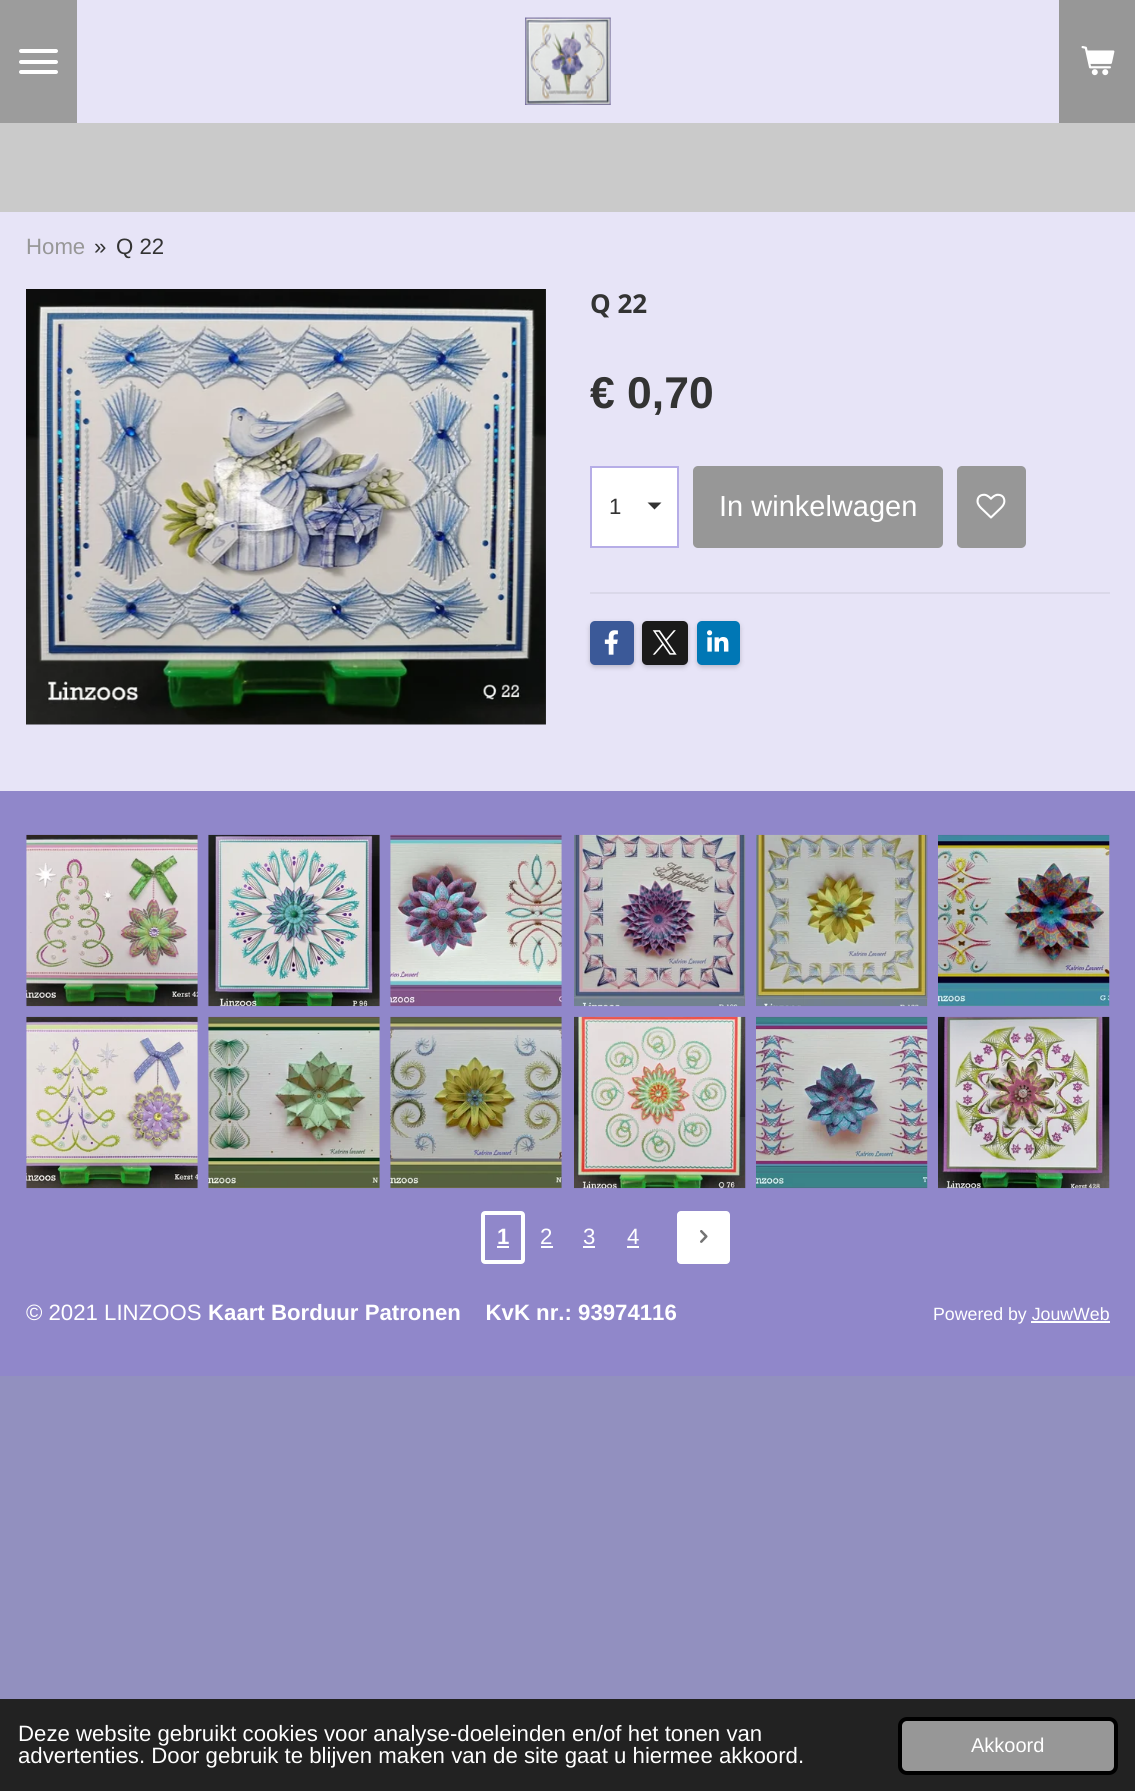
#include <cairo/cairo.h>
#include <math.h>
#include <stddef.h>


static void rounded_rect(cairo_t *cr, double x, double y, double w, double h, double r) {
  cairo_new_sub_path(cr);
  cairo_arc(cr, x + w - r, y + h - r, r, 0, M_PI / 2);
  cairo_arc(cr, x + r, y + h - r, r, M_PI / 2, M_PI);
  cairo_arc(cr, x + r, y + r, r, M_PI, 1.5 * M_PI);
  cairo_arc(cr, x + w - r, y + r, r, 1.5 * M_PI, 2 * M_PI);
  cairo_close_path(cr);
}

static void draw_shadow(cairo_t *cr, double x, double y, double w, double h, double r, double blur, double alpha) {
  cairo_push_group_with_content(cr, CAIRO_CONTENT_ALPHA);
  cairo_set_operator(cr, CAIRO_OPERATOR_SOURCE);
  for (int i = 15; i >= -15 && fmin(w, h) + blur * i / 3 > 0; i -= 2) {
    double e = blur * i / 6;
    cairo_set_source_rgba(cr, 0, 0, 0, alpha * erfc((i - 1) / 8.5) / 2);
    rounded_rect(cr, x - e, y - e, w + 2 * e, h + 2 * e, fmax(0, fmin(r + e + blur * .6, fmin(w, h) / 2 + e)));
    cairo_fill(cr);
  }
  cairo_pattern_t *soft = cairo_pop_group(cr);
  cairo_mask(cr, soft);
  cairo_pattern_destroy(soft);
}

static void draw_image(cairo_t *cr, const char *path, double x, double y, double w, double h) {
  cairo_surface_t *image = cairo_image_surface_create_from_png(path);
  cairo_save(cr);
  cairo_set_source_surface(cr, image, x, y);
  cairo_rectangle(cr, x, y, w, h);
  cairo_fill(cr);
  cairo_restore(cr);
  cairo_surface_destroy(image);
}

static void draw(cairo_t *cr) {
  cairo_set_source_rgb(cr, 146 / 255.0, 144 / 255.0, 191 / 255.0);
  cairo_paint(cr);
  cairo_set_source_rgb(cr, 156 / 255.0, 156 / 255.0, 156 / 255.0);
  cairo_rectangle(cr, 0, 0, 77, 123);
  cairo_fill(cr);
  cairo_set_source_rgb(cr, 1, 1, 1);
  rounded_rect(cr, 19, 60, 39, 4, 2);
  cairo_fill(cr);
  rounded_rect(cr, 19, 49, 39, 4, 2);
  cairo_fill(cr);
  rounded_rect(cr, 19, 70, 39, 4, 2);
  cairo_fill(cr);
  cairo_set_source_rgb(cr, 231 / 255.0, 228 / 255.0, 247 / 255.0);
  cairo_rectangle(cr, 77, 0, 982, 123);
  cairo_fill(cr);
  draw_image(cr, "images/1.png", 525, 17, 86, 88);
  cairo_set_source_rgb(cr, 151 / 255.0, 151 / 255.0, 151 / 255.0);
  cairo_rectangle(cr, 1059, 0, 76, 123);
  cairo_fill(cr);
  draw_image(cr, "images/2.png", 1081, 46, 34, 30);
  cairo_set_source_rgb(cr, 202 / 255.0, 202 / 255.0, 202 / 255.0);
  cairo_rectangle(cr, 0, 123, 1135, 89);
  cairo_fill(cr);
  cairo_set_source_rgb(cr, 231 / 255.0, 228 / 255.0, 247 / 255.0);
  cairo_rectangle(cr, 0, 212, 1135, 579);
  cairo_fill(cr);
  draw_image(cr, "images/3.png", 26, 289, 520, 436);
  cairo_set_source_rgb(cr, 1, 1, 1);
  cairo_rectangle(cr, 592, 468, 85, 78);
  cairo_fill(cr);
  cairo_set_source_rgb(cr, 51 / 255.0, 51 / 255.0, 51 / 255.0);
  cairo_new_path(cr);
  cairo_move_to(cr, 654.5, 509.5);
  cairo_line_to(cr, 647.5, 502.5);
  cairo_line_to(cr, 661.5, 502.5);
  cairo_close_path(cr);
  cairo_fill(cr);
  cairo_rectangle(cr, 591, 467, 87, 80);
  cairo_set_source_rgb(cr, 182 / 255.0, 173 / 255.0, 231 / 255.0);
  cairo_stroke(cr);
  cairo_set_source_rgb(cr, 151 / 255.0, 151 / 255.0, 151 / 255.0);
  rounded_rect(cr, 693, 466, 250, 82, 5);
  cairo_fill(cr);
  rounded_rect(cr, 957, 466, 69, 82, 5);
  cairo_fill(cr);
  draw_image(cr, "images/4.png", 976, 493, 30, 26);
  cairo_set_source_rgb(cr, 218 / 255.0, 216 / 255.0, 233 / 255.0);
  cairo_rectangle(cr, 590, 592, 520, 2);
  cairo_fill(cr);
  cairo_set_source_rgb(cr, 0, 0, 0);
  draw_shadow(cr, 590, 623, 44, 44, 5, 2.5, 0.2);
  cairo_set_source_rgb(cr, 59 / 255.0, 89 / 255.0, 152 / 255.0);
  rounded_rect(cr, 590, 621, 44, 44, 5);
  cairo_fill(cr);
  draw_image(cr, "images/5.png", 604, 630, 14, 25);
  cairo_set_source_rgb(cr, 0, 0, 0);
  draw_shadow(cr, 642, 623, 46, 44, 5, 2.5, 0.2);
  cairo_set_source_rgb(cr, 26 / 255.0, 26 / 255.0, 26 / 255.0);
  rounded_rect(cr, 642, 621, 46, 44, 5);
  cairo_fill(cr);
  draw_image(cr, "images/6.png", 652, 630, 25, 25);
  cairo_set_source_rgb(cr, 0, 0, 0);
  draw_shadow(cr, 697, 623, 43, 44, 5, 2.5, 0.2);
  cairo_set_source_rgb(cr, 0, 119 / 255.0, 181 / 255.0);
  rounded_rect(cr, 697, 621, 43, 44, 5);
  cairo_fill(cr);
  draw_image(cr, "images/7.png", 707, 630, 22, 22);
  cairo_set_source_rgb(cr, 144 / 255.0, 135 / 255.0, 202 / 255.0);
  cairo_rectangle(cr, 0, 791, 1135, 585);
  cairo_fill(cr);
  draw_image(cr, "images/8.png", 26, 834, 172, 173);
  draw_image(cr, "images/9.png", 208, 834, 172, 173);
  draw_image(cr, "images/10.png", 390, 834, 172, 173);
  draw_image(cr, "images/11.png", 574, 834, 172, 173);
  draw_image(cr, "images/12.png", 756, 834, 172, 173);
  draw_image(cr, "images/13.png", 938, 834, 172, 173);
  draw_image(cr, "images/14.png", 26, 1016, 172, 173);
  draw_image(cr, "images/15.png", 208, 1016, 172, 173);
  draw_image(cr, "images/16.png", 390, 1016, 172, 173);
  draw_image(cr, "images/17.png", 574, 1016, 172, 173);
  draw_image(cr, "images/18.png", 756, 1016, 172, 173);
  draw_image(cr, "images/19.png", 938, 1016, 172, 173);
  rounded_rect(cr, 483, 1213, 40, 49, 2);
  cairo_set_source_rgb(cr, 1, 1, 1);
  cairo_set_line_width(cr, 4);
  cairo_stroke(cr);
  cairo_rectangle(cr, 497, 1246, 12, 2);
  cairo_fill(cr);
  cairo_rectangle(cr, 541, 1246, 12, 2);
  cairo_fill(cr);
  cairo_rectangle(cr, 583, 1246, 12, 2);
  cairo_fill(cr);
  cairo_rectangle(cr, 627, 1246, 12, 2);
  cairo_fill(cr);
  rounded_rect(cr, 677, 1211, 53, 53, 4);
  cairo_fill(cr);
  draw_image(cr, "images/20.png", 700, 1230, 8, 13);
  cairo_rectangle(cr, 1031, 1321, 79, 2);
  cairo_fill(cr);
  cairo_set_source_rgb(cr, 34 / 255.0, 34 / 255.0, 34 / 255.0);
  cairo_rectangle(cr, 0, 1699, 1135, 92);
  cairo_fill(cr);
  cairo_set_source_rgb(cr, 151 / 255.0, 151 / 255.0, 151 / 255.0);
  rounded_rect(cr, 900, 1719, 216, 54, 7);
  cairo_fill_preserve(cr);
  cairo_set_source_rgb(cr, 0, 0, 0);
  cairo_stroke(cr);
  cairo_select_font_face(cr, "Liberation Sans", CAIRO_FONT_SLANT_NORMAL, CAIRO_FONT_WEIGHT_NORMAL);
  cairo_set_font_size(cr, 22.2);
  cairo_set_source_rgb(cr, 151 / 255.0, 151 / 255.0, 151 / 255.0);
  cairo_move_to(cr, 26, 254);
  cairo_show_text(cr, "Home");
  cairo_set_source_rgb(cr, 51 / 255.0, 51 / 255.0, 51 / 255.0);
  cairo_move_to(cr, 94, 254);
  cairo_show_text(cr, "»");
  cairo_move_to(cr, 116, 254);
  cairo_show_text(cr, "Q 22");
  cairo_select_font_face(cr, "Open Sans", CAIRO_FONT_SLANT_NORMAL, CAIRO_FONT_WEIGHT_BOLD);
  cairo_set_font_size(cr, 26);
  cairo_move_to(cr, 590, 313);
  cairo_show_text(cr, "Q 22");
  cairo_select_font_face(cr, "Liberation Sans", CAIRO_FONT_SLANT_NORMAL, CAIRO_FONT_WEIGHT_BOLD);
  cairo_set_font_size(cr, 44.5);
  cairo_move_to(cr, 590, 408);
  cairo_show_text(cr, "€ 0,70");
  cairo_select_font_face(cr, "Liberation Sans", CAIRO_FONT_SLANT_NORMAL, CAIRO_FONT_WEIGHT_NORMAL);
  cairo_set_font_size(cr, 22.2);
  cairo_move_to(cr, 609, 514);
  cairo_show_text(cr, "1");
  cairo_set_font_size(cr, 29);
  cairo_set_source_rgb(cr, 1, 1, 1);
  cairo_move_to(cr, 719, 516);
  cairo_show_text(cr, "In winkelwagen");
  cairo_select_font_face(cr, "Liberation Sans", CAIRO_FONT_SLANT_NORMAL, CAIRO_FONT_WEIGHT_BOLD);
  cairo_set_font_size(cr, 22.2);
  cairo_move_to(cr, 497, 1244);
  cairo_show_text(cr, "1");
  cairo_select_font_face(cr, "Liberation Sans", CAIRO_FONT_SLANT_NORMAL, CAIRO_FONT_WEIGHT_NORMAL);
  cairo_move_to(cr, 540, 1244);
  cairo_show_text(cr, "2");
  cairo_move_to(cr, 583, 1244);
  cairo_show_text(cr, "3");
  cairo_move_to(cr, 627, 1244);
  cairo_show_text(cr, "4");
  cairo_move_to(cr, 26, 1320);
  cairo_show_text(cr, "© 2021 LINZOOS");
  cairo_select_font_face(cr, "Liberation Sans", CAIRO_FONT_SLANT_NORMAL, CAIRO_FONT_WEIGHT_BOLD);
  cairo_move_to(cr, 208, 1320);
  cairo_show_text(cr, "Kaart Borduur Patronen    KvK nr.: 93974116");
  cairo_select_font_face(cr, "Liberation Sans", CAIRO_FONT_SLANT_NORMAL, CAIRO_FONT_WEIGHT_NORMAL);
  cairo_set_font_size(cr, 17.75);
  cairo_move_to(cr, 933, 1320);
  cairo_show_text(cr, "Powered by JouwWeb");
  cairo_set_font_size(cr, 22.2);
  cairo_move_to(cr, 18, 1741);
  cairo_show_text(cr, "Deze website gebruikt cookies voor analyse-doeleinden en/of het tonen van");
  cairo_move_to(cr, 18, 1763);
  cairo_show_text(cr, "advertenties. Door gebruik te blijven maken van de site gaat u hiermee akkoord.");
  cairo_set_font_size(cr, 20);
  cairo_move_to(cr, 971, 1752);
  cairo_show_text(cr, "Akkoord");
}

int main(void) {
  cairo_surface_t *surface = cairo_image_surface_create(CAIRO_FORMAT_RGB24, 1135, 1791);
  cairo_t *cr = cairo_create(surface);
  cairo_font_options_t *options = cairo_font_options_create();
  cairo_font_options_set_hint_metrics(options, CAIRO_HINT_METRICS_OFF);
  cairo_font_options_set_hint_style(options, CAIRO_HINT_STYLE_NONE);
  cairo_set_font_options(cr, options);
  cairo_set_miter_limit(cr, 4);
  draw(cr);
  cairo_surface_write_to_png(surface, "out.png");
  cairo_font_options_destroy(options);
  cairo_destroy(cr);
  cairo_surface_destroy(surface);
  return 0;
}
